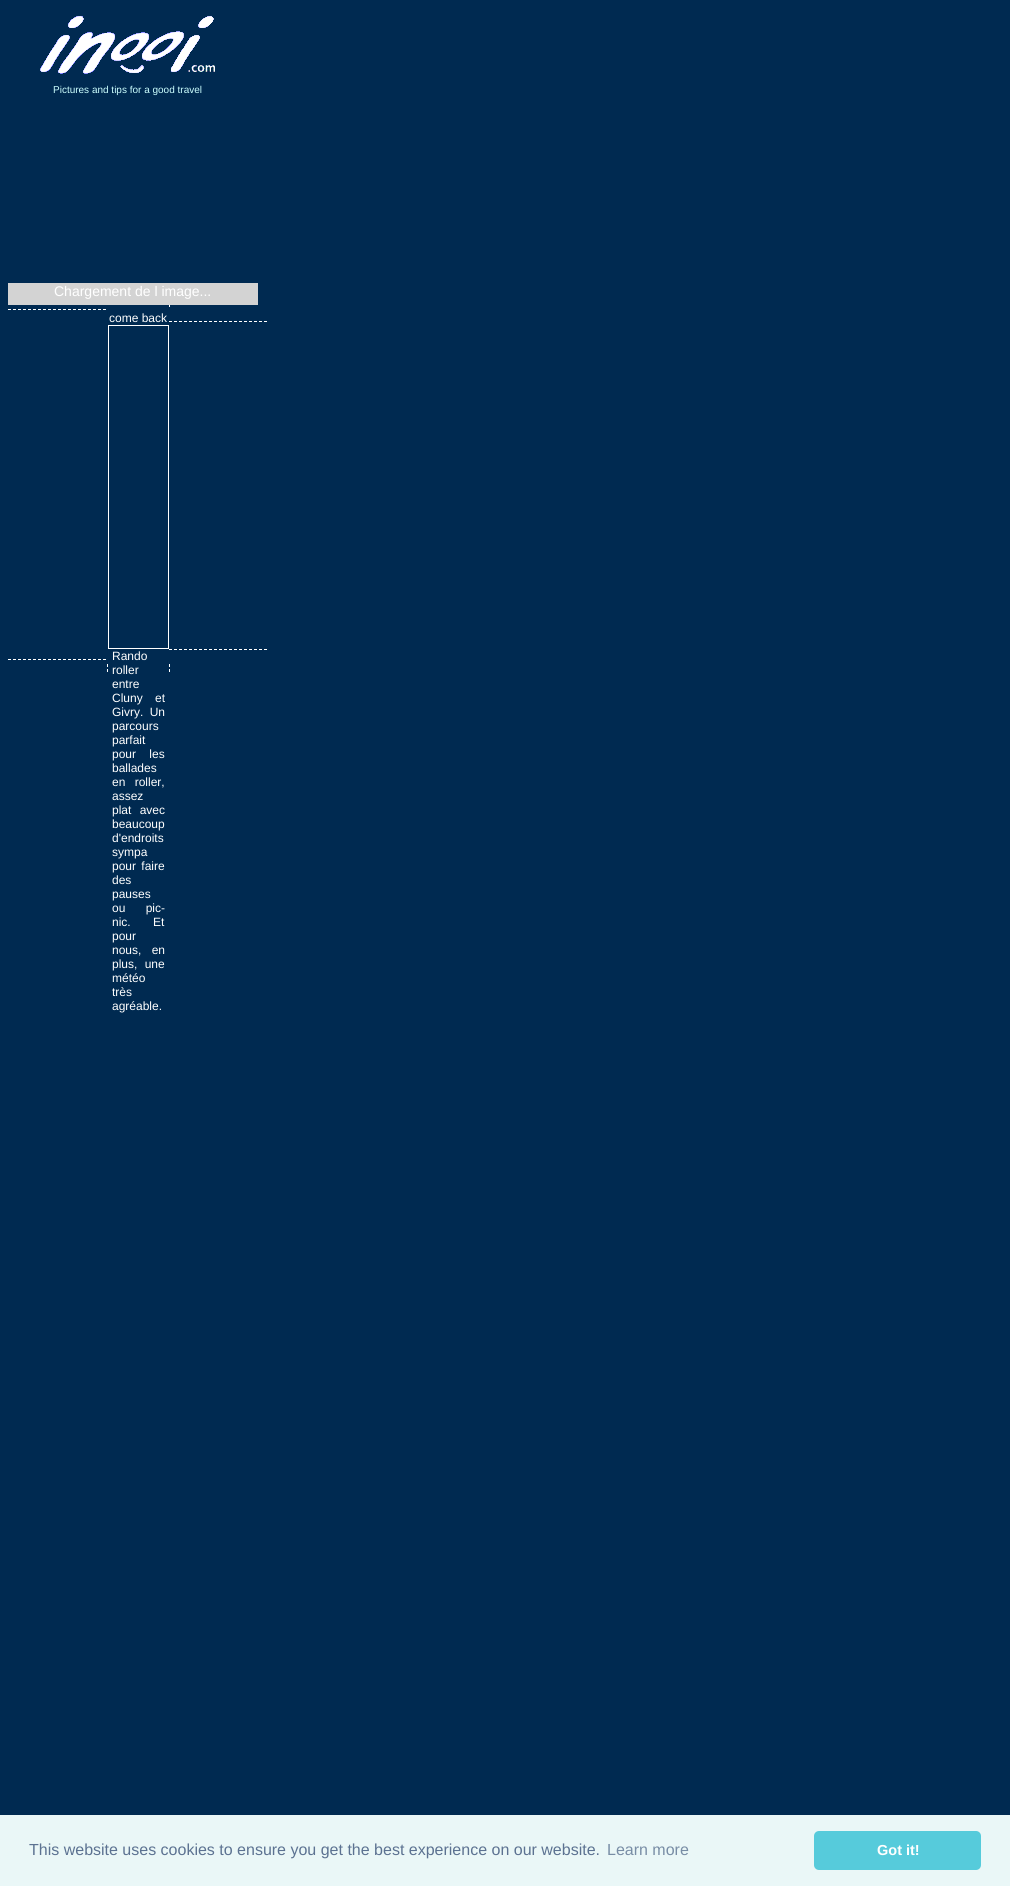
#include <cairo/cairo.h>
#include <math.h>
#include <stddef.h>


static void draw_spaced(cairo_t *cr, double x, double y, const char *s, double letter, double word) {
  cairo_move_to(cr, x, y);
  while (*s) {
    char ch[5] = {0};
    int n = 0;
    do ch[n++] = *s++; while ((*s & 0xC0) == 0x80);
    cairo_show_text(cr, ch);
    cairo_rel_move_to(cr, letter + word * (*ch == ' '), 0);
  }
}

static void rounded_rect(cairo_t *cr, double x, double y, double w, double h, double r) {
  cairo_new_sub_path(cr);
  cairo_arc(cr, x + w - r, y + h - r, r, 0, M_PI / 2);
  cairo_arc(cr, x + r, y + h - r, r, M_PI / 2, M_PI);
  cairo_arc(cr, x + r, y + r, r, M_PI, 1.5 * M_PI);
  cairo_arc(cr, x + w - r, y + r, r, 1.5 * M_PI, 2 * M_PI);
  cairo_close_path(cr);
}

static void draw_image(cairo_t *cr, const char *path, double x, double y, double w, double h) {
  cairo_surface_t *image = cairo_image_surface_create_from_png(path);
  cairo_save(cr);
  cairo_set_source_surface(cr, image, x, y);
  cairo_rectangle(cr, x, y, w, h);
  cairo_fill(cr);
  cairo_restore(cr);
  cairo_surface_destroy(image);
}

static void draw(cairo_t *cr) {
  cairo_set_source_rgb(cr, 0, 42 / 255.0, 81 / 255.0);
  cairo_paint(cr);
  draw_image(cr, "images/1.png", 40, 16, 175, 58);
  cairo_set_source_rgb(cr, 211 / 255.0, 211 / 255.0, 211 / 255.0);
  cairo_rectangle(cr, 8, 283, 250, 22);
  cairo_fill(cr);
  draw_image(cr, "images/2.png", 8, 309, 98, 1);
  draw_image(cr, "images/3.png", 169, 305, 1, 2);
  draw_image(cr, "images/2.png", 169, 321, 98, 1);
  cairo_rectangle(cr, 108.5, 325.5, 60, 323);
  cairo_set_source_rgb(cr, 1, 1, 1);
  cairo_set_line_width(cr, 1);
  cairo_stroke(cr);
  draw_image(cr, "images/2.png", 8, 659, 98, 1);
  draw_image(cr, "images/4.png", 107, 664, 1, 8);
  draw_image(cr, "images/2.png", 169, 649, 98, 1);
  draw_image(cr, "images/4.png", 169, 664, 1, 8);
  cairo_set_source_rgb(cr, 234 / 255.0, 247 / 255.0, 247 / 255.0);
  cairo_rectangle(cr, 0, 1815, 1010, 71);
  cairo_fill(cr);
  cairo_set_source_rgb(cr, 86 / 255.0, 203 / 255.0, 219 / 255.0);
  rounded_rect(cr, 814, 1831, 167, 39, 5);
  cairo_fill(cr);
  cairo_select_font_face(cr, "Liberation Sans", CAIRO_FONT_SLANT_NORMAL, CAIRO_FONT_WEIGHT_NORMAL);
  cairo_set_font_size(cr, 10);
  cairo_set_source_rgb(cr, 204 / 255.0, 1, 1);
  cairo_move_to(cr, 53, 93);
  cairo_show_text(cr, "Pictures and tips for a good travel");
  cairo_set_font_size(cr, 14);
  cairo_set_source_rgb(cr, 1, 1, 1);
  cairo_move_to(cr, 54, 296);
  cairo_show_text(cr, "Chargement de l image...");
  cairo_set_font_size(cr, 12);
  cairo_move_to(cr, 109, 322);
  cairo_show_text(cr, "come back");
  cairo_move_to(cr, 112, 660);
  cairo_show_text(cr, "Rando");
  cairo_move_to(cr, 112, 674);
  cairo_show_text(cr, "roller");
  cairo_move_to(cr, 112, 688);
  cairo_show_text(cr, "entre");
  draw_spaced(cr, 112, 702, "Cluny et", 0, 9);
  draw_spaced(cr, 112, 716, "Givry. Un", 0, 3);
  cairo_move_to(cr, 112, 730);
  cairo_show_text(cr, "parcours");
  cairo_move_to(cr, 112, 744);
  cairo_show_text(cr, "parfait");
  draw_spaced(cr, 112, 758, "pour les", 0, 10);
  cairo_move_to(cr, 112, 772);
  cairo_show_text(cr, "ballades");
  draw_spaced(cr, 112, 786, "en roller,", 0, 6);
  cairo_move_to(cr, 112, 800);
  cairo_show_text(cr, "assez");
  draw_spaced(cr, 112, 814, "plat avec", 0, 5);
  cairo_move_to(cr, 112, 828);
  cairo_show_text(cr, "beaucoup");
  cairo_move_to(cr, 112, 842);
  cairo_show_text(cr, "d'endroits");
  cairo_move_to(cr, 112, 856);
  cairo_show_text(cr, "sympa");
  draw_spaced(cr, 112, 870, "pour faire", 0, 2);
  cairo_move_to(cr, 112, 884);
  cairo_show_text(cr, "des");
  cairo_move_to(cr, 112, 898);
  cairo_show_text(cr, "pauses");
  draw_spaced(cr, 112, 912, "ou pic-", 0, 17);
  draw_spaced(cr, 112, 926, "nic. Et", 0, 19);
  cairo_move_to(cr, 112, 940);
  cairo_show_text(cr, "pour");
  draw_spaced(cr, 112, 954, "nous, en", 0, 7);
  draw_spaced(cr, 112, 968, "plus, une", 0, 4);
  cairo_move_to(cr, 112, 982);
  cairo_show_text(cr, "météo");
  cairo_move_to(cr, 112, 996);
  cairo_show_text(cr, "très");
  cairo_move_to(cr, 112, 1010);
  cairo_show_text(cr, "agréable.");
  cairo_set_font_size(cr, 16);
  cairo_set_source_rgb(cr, 92 / 255.0, 114 / 255.0, 145 / 255.0);
  cairo_move_to(cr, 29, 1855);
  cairo_show_text(cr, "This website uses cookies to ensure you get the best experience on our website.");
  cairo_set_source_rgb(cr, 120 / 255.0, 141 / 255.0, 165 / 255.0);
  cairo_move_to(cr, 607, 1855);
  cairo_show_text(cr, "Learn more");
  cairo_select_font_face(cr, "Liberation Sans", CAIRO_FONT_SLANT_NORMAL, CAIRO_FONT_WEIGHT_BOLD);
  cairo_set_font_size(cr, 14.5);
  cairo_set_source_rgb(cr, 1, 1, 1);
  cairo_move_to(cr, 877, 1855);
  cairo_show_text(cr, "Got it!");
}

int main(void) {
  cairo_surface_t *surface = cairo_image_surface_create(CAIRO_FORMAT_RGB24, 1010, 1886);
  cairo_t *cr = cairo_create(surface);
  cairo_font_options_t *options = cairo_font_options_create();
  cairo_font_options_set_hint_metrics(options, CAIRO_HINT_METRICS_OFF);
  cairo_font_options_set_hint_style(options, CAIRO_HINT_STYLE_NONE);
  cairo_set_font_options(cr, options);
  cairo_set_miter_limit(cr, 4);
  draw(cr);
  cairo_surface_write_to_png(surface, "out.png");
  cairo_font_options_destroy(options);
  cairo_destroy(cr);
  cairo_surface_destroy(surface);
  return 0;
}
